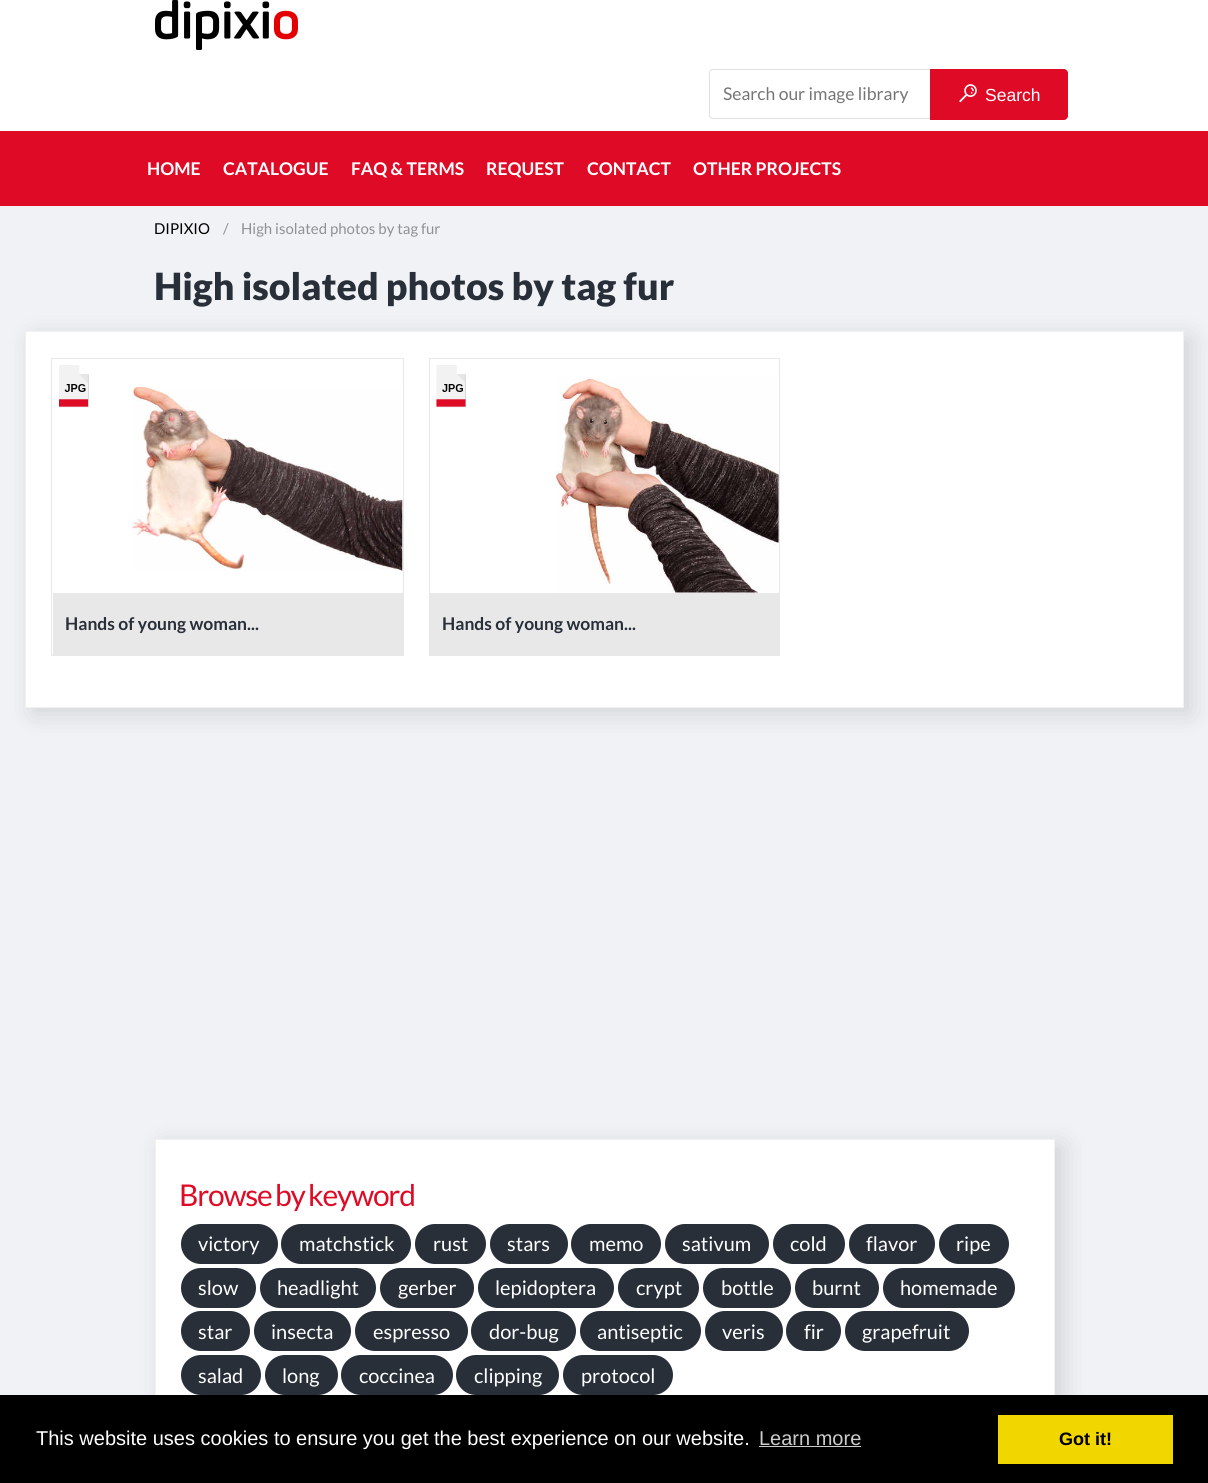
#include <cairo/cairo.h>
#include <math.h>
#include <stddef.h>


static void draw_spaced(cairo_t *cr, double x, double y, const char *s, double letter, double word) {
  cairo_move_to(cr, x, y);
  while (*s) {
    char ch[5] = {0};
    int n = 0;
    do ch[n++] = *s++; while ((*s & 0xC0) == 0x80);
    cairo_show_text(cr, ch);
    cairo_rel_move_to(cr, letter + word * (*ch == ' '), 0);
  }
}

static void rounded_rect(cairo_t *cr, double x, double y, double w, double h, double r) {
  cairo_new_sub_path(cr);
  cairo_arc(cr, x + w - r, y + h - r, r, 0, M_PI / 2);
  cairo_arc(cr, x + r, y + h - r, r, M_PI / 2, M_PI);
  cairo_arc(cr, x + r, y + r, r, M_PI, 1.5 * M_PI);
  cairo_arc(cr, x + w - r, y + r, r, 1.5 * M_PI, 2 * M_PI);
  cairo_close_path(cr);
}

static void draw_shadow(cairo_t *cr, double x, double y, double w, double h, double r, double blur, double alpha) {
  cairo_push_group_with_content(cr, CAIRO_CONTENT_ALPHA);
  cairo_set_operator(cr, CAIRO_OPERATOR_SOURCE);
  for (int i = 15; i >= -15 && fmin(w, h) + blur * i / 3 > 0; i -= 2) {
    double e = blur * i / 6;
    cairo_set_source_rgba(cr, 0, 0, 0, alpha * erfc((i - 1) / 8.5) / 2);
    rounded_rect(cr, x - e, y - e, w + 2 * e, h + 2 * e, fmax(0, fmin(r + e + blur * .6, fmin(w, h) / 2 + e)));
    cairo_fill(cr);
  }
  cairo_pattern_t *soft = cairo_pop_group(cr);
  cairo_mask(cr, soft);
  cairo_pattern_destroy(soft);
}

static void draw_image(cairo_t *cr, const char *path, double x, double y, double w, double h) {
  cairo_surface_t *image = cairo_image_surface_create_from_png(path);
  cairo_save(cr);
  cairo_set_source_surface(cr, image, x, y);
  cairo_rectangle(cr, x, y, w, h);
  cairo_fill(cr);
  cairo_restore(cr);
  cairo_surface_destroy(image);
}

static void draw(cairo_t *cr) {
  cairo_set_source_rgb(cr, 240 / 255.0, 242 / 255.0, 245 / 255.0);
  cairo_paint(cr);
  cairo_set_source_rgb(cr, 1, 1, 1);
  cairo_rectangle(cr, 0, 0, 1208, 131);
  cairo_fill(cr);
  draw_image(cr, "images/1.png", 155, 0, 143, 50);
  cairo_new_path(cr);
  cairo_move_to(cr, 713, 69.5);
  cairo_line_to(cr, 930.5, 69.5);
  cairo_line_to(cr, 930.5, 118.5);
  cairo_line_to(cr, 713, 118.5);
  cairo_curve_to(cr, 711, 118.5, 709.5, 117, 709.5, 115);
  cairo_line_to(cr, 709.5, 73);
  cairo_curve_to(cr, 709.5, 71, 711, 69.5, 713, 69.5);
  cairo_close_path(cr);
  cairo_set_source_rgb(cr, 223 / 255.0, 223 / 255.0, 223 / 255.0);
  cairo_set_line_width(cr, 1);
  cairo_stroke(cr);
  cairo_set_source_rgb(cr, 223 / 255.0, 11 / 255.0, 38 / 255.0);
  cairo_new_path(cr);
  cairo_move_to(cr, 930, 69);
  cairo_line_to(cr, 1064, 69);
  cairo_curve_to(cr, 1066, 69, 1068, 71, 1068, 73);
  cairo_line_to(cr, 1068, 116);
  cairo_curve_to(cr, 1068, 118, 1066, 120, 1064, 120);
  cairo_line_to(cr, 930, 120);
  cairo_close_path(cr);
  cairo_fill(cr);
  draw_image(cr, "images/2.png", 959, 84, 18, 19);
  cairo_rectangle(cr, 0, 131, 1208, 75);
  cairo_fill(cr);
  cairo_set_source_rgb(cr, 35 / 255.0, 34 / 255.0, 40 / 255.0);
  draw_shadow(cr, 33, 338, 1158, 376, 0, 12.5, 0.15);
  cairo_set_source_rgb(cr, 1, 1, 1);
  cairo_rectangle(cr, 25.5, 331.5, 1158, 376);
  cairo_fill_preserve(cr);
  cairo_set_source_rgb(cr, 241 / 255.0, 241 / 255.0, 241 / 255.0);
  cairo_stroke(cr);
  cairo_rectangle(cr, 51.5, 358.5, 352, 297);
  cairo_set_source_rgb(cr, 232 / 255.0, 232 / 255.0, 233 / 255.0);
  cairo_stroke(cr);
  draw_image(cr, "images/3.png", 59, 365, 30, 43);
  draw_image(cr, "images/4.png", 132, 387, 271, 184);
  cairo_rectangle(cr, 53, 593, 350, 62);
  cairo_fill(cr);
  cairo_rectangle(cr, 429.5, 358.5, 350, 297);
  cairo_stroke(cr);
  draw_image(cr, "images/5.png", 436, 365, 30, 43);
  draw_image(cr, "images/6.png", 555, 377, 224, 216);
  cairo_rectangle(cr, 430, 593, 349, 62);
  cairo_fill(cr);
  cairo_set_source_rgb(cr, 35 / 255.0, 34 / 255.0, 40 / 255.0);
  draw_shadow(cr, 163, 1145, 900, 286, 0, 12.5, 0.15);
  cairo_set_source_rgb(cr, 1, 1, 1);
  cairo_rectangle(cr, 156, 1140, 898, 255);
  cairo_fill(cr);
  cairo_rectangle(cr, 155.5, 1139.5, 899, 285);
  cairo_set_source_rgb(cr, 241 / 255.0, 241 / 255.0, 241 / 255.0);
  cairo_stroke(cr);
  cairo_set_source_rgb(cr, 40 / 255.0, 47 / 255.0, 57 / 255.0);
  rounded_rect(cr, 181, 1224, 97, 40, 20);
  cairo_fill(cr);
  rounded_rect(cr, 281, 1224, 130, 40, 20);
  cairo_fill(cr);
  rounded_rect(cr, 415, 1224, 71, 40, 20);
  cairo_fill(cr);
  rounded_rect(cr, 490, 1224, 78, 40, 20);
  cairo_fill(cr);
  rounded_rect(cr, 571, 1224, 90, 40, 20);
  cairo_fill(cr);
  rounded_rect(cr, 665, 1224, 104, 40, 20);
  cairo_fill(cr);
  rounded_rect(cr, 773, 1224, 72, 40, 20);
  cairo_fill(cr);
  rounded_rect(cr, 849, 1224, 86, 40, 20);
  cairo_fill(cr);
  rounded_rect(cr, 939, 1224, 70, 40, 20);
  cairo_fill(cr);
  rounded_rect(cr, 181, 1268, 75, 40, 20);
  cairo_fill(cr);
  rounded_rect(cr, 260, 1268, 116, 40, 20);
  cairo_fill(cr);
  rounded_rect(cr, 380, 1268, 94, 40, 20);
  cairo_fill(cr);
  rounded_rect(cr, 478, 1268, 136, 40, 20);
  cairo_fill(cr);
  rounded_rect(cr, 618, 1268, 81, 40, 20);
  cairo_fill(cr);
  rounded_rect(cr, 703, 1268, 88, 40, 20);
  cairo_fill(cr);
  rounded_rect(cr, 795, 1268, 84, 40, 20);
  cairo_fill(cr);
  rounded_rect(cr, 883, 1268, 132, 40, 20);
  cairo_fill(cr);
  rounded_rect(cr, 181, 1311, 69, 40, 20);
  cairo_fill(cr);
  rounded_rect(cr, 254, 1311, 97, 40, 20);
  cairo_fill(cr);
  rounded_rect(cr, 355, 1311, 113, 40, 20);
  cairo_fill(cr);
  rounded_rect(cr, 471, 1311, 105, 40, 20);
  cairo_fill(cr);
  rounded_rect(cr, 580, 1311, 121, 40, 20);
  cairo_fill(cr);
  rounded_rect(cr, 705, 1311, 78, 40, 20);
  cairo_fill(cr);
  rounded_rect(cr, 786, 1311, 55, 40, 20);
  cairo_fill(cr);
  rounded_rect(cr, 845, 1311, 124, 40, 20);
  cairo_fill(cr);
  rounded_rect(cr, 181, 1355, 80, 40, 20);
  cairo_fill(cr);
  rounded_rect(cr, 265, 1355, 73, 40, 20);
  cairo_fill(cr);
  rounded_rect(cr, 341, 1355, 112, 40, 20);
  cairo_fill(cr);
  rounded_rect(cr, 456, 1355, 103, 40, 20);
  cairo_fill(cr);
  rounded_rect(cr, 563, 1355, 110, 40, 20);
  cairo_fill(cr);
  cairo_set_source_rgb(cr, 0, 0, 0);
  cairo_rectangle(cr, 0, 1395, 1208, 88);
  cairo_fill(cr);
  cairo_set_source_rgb(cr, 204 / 255.0, 204 / 255.0, 204 / 255.0);
  cairo_rectangle(cr, 759, 1446, 102, 1);
  cairo_fill(cr);
  cairo_set_source_rgb(cr, 241 / 255.0, 214 / 255.0, 0);
  cairo_rectangle(cr, 998, 1415, 175, 49);
  cairo_fill(cr);
  cairo_select_font_face(cr, "Lato", CAIRO_FONT_SLANT_NORMAL, CAIRO_FONT_WEIGHT_NORMAL);
  cairo_set_font_size(cr, 17.5);
  cairo_set_source_rgb(cr, 117 / 255.0, 117 / 255.0, 117 / 255.0);
  cairo_move_to(cr, 723, 100);
  cairo_show_text(cr, "Search our image library");
  cairo_select_font_face(cr, "Liberation Sans", CAIRO_FONT_SLANT_NORMAL, CAIRO_FONT_WEIGHT_NORMAL);
  cairo_set_source_rgb(cr, 1, 1, 1);
  cairo_move_to(cr, 985, 101);
  cairo_show_text(cr, "Search");
  cairo_select_font_face(cr, "Lato", CAIRO_FONT_SLANT_NORMAL, CAIRO_FONT_WEIGHT_BOLD);
  cairo_move_to(cr, 147, 175);
  cairo_show_text(cr, "HOME");
  cairo_move_to(cr, 223, 175);
  cairo_show_text(cr, "CATALOGUE");
  cairo_move_to(cr, 351, 175);
  cairo_show_text(cr, "FAQ & TERMS");
  cairo_move_to(cr, 486, 175);
  cairo_show_text(cr, "REQUEST");
  cairo_move_to(cr, 587, 175);
  cairo_show_text(cr, "CONTACT");
  cairo_move_to(cr, 693, 175);
  cairo_show_text(cr, "OTHER PROJECTS");
  cairo_select_font_face(cr, "Lato", CAIRO_FONT_SLANT_NORMAL, CAIRO_FONT_WEIGHT_NORMAL);
  cairo_set_font_size(cr, 15);
  cairo_set_source_rgb(cr, 0, 0, 0);
  cairo_move_to(cr, 154, 234);
  cairo_show_text(cr, "DIPIXIO");
  cairo_set_source_rgb(cr, 144 / 255.0, 145 / 255.0, 147 / 255.0);
  cairo_move_to(cr, 223, 234);
  cairo_show_text(cr, "/");
  cairo_move_to(cr, 241, 234);
  cairo_show_text(cr, "High isolated photos by tag fur");
  cairo_select_font_face(cr, "Lato Black", CAIRO_FONT_SLANT_NORMAL, CAIRO_FONT_WEIGHT_NORMAL);
  cairo_set_font_size(cr, 37.5);
  cairo_set_source_rgb(cr, 40 / 255.0, 47 / 255.0, 57 / 255.0);
  cairo_move_to(cr, 154, 300);
  cairo_show_text(cr, "High isolated photos by tag fur");
  cairo_select_font_face(cr, "Lato", CAIRO_FONT_SLANT_NORMAL, CAIRO_FONT_WEIGHT_BOLD);
  cairo_set_font_size(cr, 17.5);
  cairo_move_to(cr, 65, 630);
  cairo_show_text(cr, "Hands of young woman...");
  cairo_move_to(cr, 442, 630);
  cairo_show_text(cr, "Hands of young woman...");
  cairo_select_font_face(cr, "Lato", CAIRO_FONT_SLANT_NORMAL, CAIRO_FONT_WEIGHT_NORMAL);
  cairo_set_font_size(cr, 30);
  cairo_set_source_rgb(cr, 223 / 255.0, 11 / 255.0, 38 / 255.0);
  draw_spaced(cr, 179, 1206, "Browse by keyword", -1.25, -1);
  cairo_set_font_size(cr, 20);
  cairo_set_source_rgb(cr, 1, 1, 1);
  cairo_move_to(cr, 198, 1251);
  cairo_show_text(cr, "victory");
  cairo_move_to(cr, 299, 1251);
  cairo_show_text(cr, "matchstick");
  cairo_move_to(cr, 433, 1251);
  cairo_show_text(cr, "rust");
  cairo_move_to(cr, 507, 1251);
  cairo_show_text(cr, "stars");
  cairo_move_to(cr, 589, 1251);
  cairo_show_text(cr, "memo");
  cairo_move_to(cr, 682, 1251);
  cairo_show_text(cr, "sativum");
  cairo_move_to(cr, 790, 1251);
  cairo_show_text(cr, "cold");
  cairo_move_to(cr, 866, 1251);
  cairo_show_text(cr, "flavor");
  cairo_move_to(cr, 956, 1251);
  cairo_show_text(cr, "ripe");
  cairo_move_to(cr, 198, 1295);
  cairo_show_text(cr, "slow");
  cairo_move_to(cr, 277, 1295);
  cairo_show_text(cr, "headlight");
  cairo_move_to(cr, 398, 1295);
  cairo_show_text(cr, "gerber");
  cairo_move_to(cr, 495, 1295);
  cairo_show_text(cr, "lepidoptera");
  cairo_move_to(cr, 636, 1295);
  cairo_show_text(cr, "crypt");
  cairo_move_to(cr, 721, 1295);
  cairo_show_text(cr, "bottle");
  cairo_move_to(cr, 812, 1295);
  cairo_show_text(cr, "burnt");
  cairo_move_to(cr, 900, 1295);
  cairo_show_text(cr, "homemade");
  cairo_move_to(cr, 198, 1339);
  cairo_show_text(cr, "star");
  cairo_move_to(cr, 271, 1339);
  cairo_show_text(cr, "insecta");
  cairo_move_to(cr, 373, 1339);
  cairo_show_text(cr, "espresso");
  cairo_move_to(cr, 489, 1339);
  cairo_show_text(cr, "dor-bug");
  cairo_move_to(cr, 597, 1339);
  cairo_show_text(cr, "antiseptic");
  cairo_move_to(cr, 722, 1339);
  cairo_show_text(cr, "veris");
  cairo_move_to(cr, 804, 1339);
  cairo_show_text(cr, "fir");
  cairo_move_to(cr, 862, 1339);
  cairo_show_text(cr, "grapefruit");
  cairo_move_to(cr, 198, 1383);
  cairo_show_text(cr, "salad");
  cairo_move_to(cr, 282, 1383);
  cairo_show_text(cr, "long");
  cairo_move_to(cr, 359, 1383);
  cairo_show_text(cr, "coccinea");
  cairo_move_to(cr, 474, 1383);
  cairo_show_text(cr, "clipping");
  cairo_move_to(cr, 581, 1383);
  cairo_show_text(cr, "protocol");
  cairo_select_font_face(cr, "Liberation Sans", CAIRO_FONT_SLANT_NORMAL, CAIRO_FONT_WEIGHT_NORMAL);
  cairo_move_to(cr, 36, 1445);
  cairo_show_text(cr, "This website uses cookies to ensure you get the best experience on our website.");
  cairo_set_source_rgb(cr, 204 / 255.0, 204 / 255.0, 204 / 255.0);
  cairo_move_to(cr, 759, 1445);
  cairo_show_text(cr, "Learn more");
  cairo_select_font_face(cr, "Liberation Sans", CAIRO_FONT_SLANT_NORMAL, CAIRO_FONT_WEIGHT_BOLD);
  cairo_set_font_size(cr, 18);
  cairo_set_source_rgb(cr, 0, 0, 0);
  cairo_move_to(cr, 1059, 1445);
  cairo_show_text(cr, "Got it!");
}

int main(void) {
  cairo_surface_t *surface = cairo_image_surface_create(CAIRO_FORMAT_RGB24, 1208, 1483);
  cairo_t *cr = cairo_create(surface);
  cairo_font_options_t *options = cairo_font_options_create();
  cairo_font_options_set_hint_metrics(options, CAIRO_HINT_METRICS_OFF);
  cairo_font_options_set_hint_style(options, CAIRO_HINT_STYLE_NONE);
  cairo_set_font_options(cr, options);
  cairo_set_miter_limit(cr, 4);
  draw(cr);
  cairo_surface_write_to_png(surface, "out.png");
  cairo_font_options_destroy(options);
  cairo_destroy(cr);
  cairo_surface_destroy(surface);
  return 0;
}
